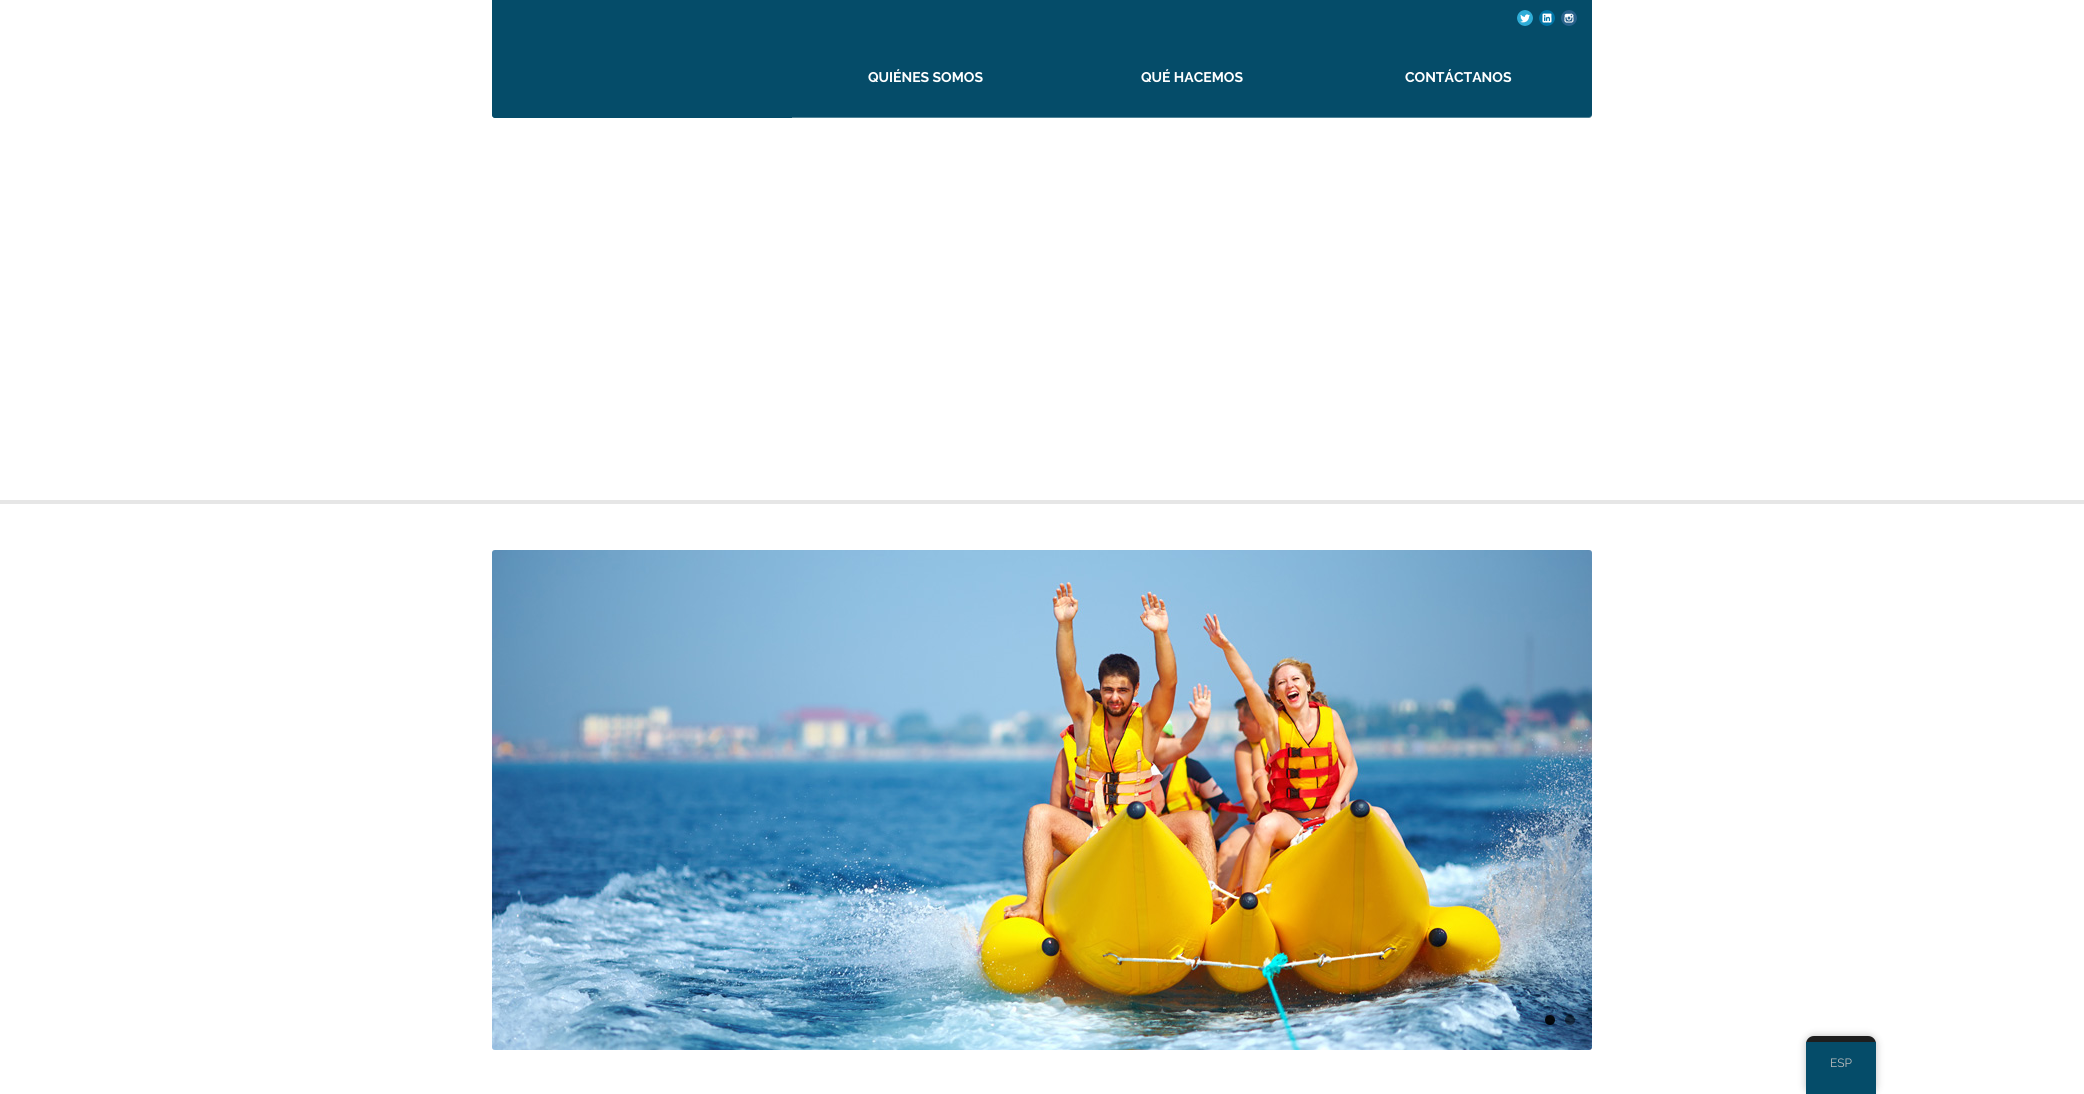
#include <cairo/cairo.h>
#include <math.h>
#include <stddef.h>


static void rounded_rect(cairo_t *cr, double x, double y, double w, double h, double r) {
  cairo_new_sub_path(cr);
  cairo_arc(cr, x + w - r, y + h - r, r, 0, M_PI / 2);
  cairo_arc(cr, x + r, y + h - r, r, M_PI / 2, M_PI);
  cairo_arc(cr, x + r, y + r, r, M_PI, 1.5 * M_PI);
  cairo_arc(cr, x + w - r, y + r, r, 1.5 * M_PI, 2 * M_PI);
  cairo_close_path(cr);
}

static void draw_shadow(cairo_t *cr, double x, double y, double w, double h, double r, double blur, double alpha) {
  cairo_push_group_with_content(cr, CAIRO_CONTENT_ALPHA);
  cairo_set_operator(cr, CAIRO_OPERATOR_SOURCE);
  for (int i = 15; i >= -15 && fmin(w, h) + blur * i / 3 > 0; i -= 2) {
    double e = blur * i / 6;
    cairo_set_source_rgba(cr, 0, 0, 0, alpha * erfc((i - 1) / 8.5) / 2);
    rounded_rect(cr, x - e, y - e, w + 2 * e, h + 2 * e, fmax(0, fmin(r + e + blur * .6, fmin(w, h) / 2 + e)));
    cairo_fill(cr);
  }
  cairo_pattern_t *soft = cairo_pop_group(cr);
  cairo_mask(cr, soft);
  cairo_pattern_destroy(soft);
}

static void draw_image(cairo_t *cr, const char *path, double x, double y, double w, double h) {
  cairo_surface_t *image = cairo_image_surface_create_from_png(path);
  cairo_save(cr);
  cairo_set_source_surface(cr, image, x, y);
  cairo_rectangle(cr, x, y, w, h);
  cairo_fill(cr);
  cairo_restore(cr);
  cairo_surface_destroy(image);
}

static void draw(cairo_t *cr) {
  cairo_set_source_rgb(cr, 1, 1, 1);
  cairo_paint(cr);
  cairo_set_source_rgb(cr, 80 / 255.0, 130 / 255.0, 150 / 255.0);
  cairo_new_path(cr);
  cairo_move_to(cr, 492, 0);
  cairo_line_to(cr, 1592, 0);
  cairo_line_to(cr, 1592, 115);
  cairo_curve_to(cr, 1592, 116.5, 1590.5, 118, 1589, 118);
  cairo_line_to(cr, 495, 118);
  cairo_curve_to(cr, 493.5, 118, 492, 116.5, 492, 115);
  cairo_close_path(cr);
  cairo_fill(cr);
  cairo_set_source_rgb(cr, 5 / 255.0, 76 / 255.0, 105 / 255.0);
  cairo_new_path(cr);
  cairo_move_to(cr, 492, 0);
  cairo_line_to(cr, 792, 0);
  cairo_line_to(cr, 792, 118);
  cairo_line_to(cr, 495, 118);
  cairo_curve_to(cr, 493.5, 118, 492, 116.5, 492, 115);
  cairo_close_path(cr);
  cairo_fill(cr);
  cairo_new_path(cr);
  cairo_move_to(cr, 792, 0);
  cairo_line_to(cr, 1592, 0);
  cairo_line_to(cr, 1592, 114);
  cairo_curve_to(cr, 1592, 115.5, 1590.5, 117, 1589, 117);
  cairo_line_to(cr, 792, 117);
  cairo_close_path(cr);
  cairo_fill(cr);
  draw_image(cr, "images/1.png", 1517, 10, 16, 16);
  draw_image(cr, "images/2.png", 1539, 10, 16, 16);
  draw_image(cr, "images/3.png", 1561, 10, 16, 16);
  cairo_set_source_rgb(cr, 230 / 255.0, 230 / 255.0, 230 / 255.0);
  cairo_rectangle(cr, 0, 500, 2084, 4);
  cairo_fill(cr);
  draw_image(cr, "images/4.png", 492, 550, 1100, 500);
  cairo_set_source_rgba(cr, 0, 0, 0, 0.9);
  cairo_arc(cr, 1550, 1020, 5, 0, 2 * M_PI);
  cairo_fill(cr);
  cairo_set_source_rgba(cr, 0, 0, 0, 0.5);
  cairo_arc(cr, 1570, 1020, 5, 0, 2 * M_PI);
  cairo_fill(cr);
  cairo_set_source_rgb(cr, 0, 0, 0);
  draw_shadow(cr, 1806, 1036, 70, 58, 8, 4, 0.25);
  cairo_set_source_rgb(cr, 30 / 255.0, 30 / 255.0, 30 / 255.0);
  cairo_new_path(cr);
  cairo_move_to(cr, 1814, 1036);
  cairo_line_to(cr, 1868, 1036);
  cairo_curve_to(cr, 1872.5, 1036, 1876, 1039.5, 1876, 1044);
  cairo_line_to(cr, 1876, 1094);
  cairo_line_to(cr, 1806, 1094);
  cairo_line_to(cr, 1806, 1044);
  cairo_curve_to(cr, 1806, 1039.5, 1809.5, 1036, 1814, 1036);
  cairo_close_path(cr);
  cairo_fill(cr);
  cairo_set_source_rgb(cr, 5 / 255.0, 76 / 255.0, 105 / 255.0);
  cairo_rectangle(cr, 1806, 1042, 70, 52);
  cairo_fill(cr);
  cairo_select_font_face(cr, "Raleway", CAIRO_FONT_SLANT_NORMAL, CAIRO_FONT_WEIGHT_BOLD);
  cairo_set_font_size(cr, 14);
  cairo_set_source_rgb(cr, 1, 1, 1);
  cairo_move_to(cr, 868, 82);
  cairo_show_text(cr, "QUIÉNES SOMOS");
  cairo_move_to(cr, 1141, 82);
  cairo_show_text(cr, "QUÉ HACEMOS");
  cairo_move_to(cr, 1405, 82);
  cairo_show_text(cr, "CONTÁCTANOS");
  cairo_select_font_face(cr, "Raleway", CAIRO_FONT_SLANT_NORMAL, CAIRO_FONT_WEIGHT_NORMAL);
  cairo_set_font_size(cr, 12);
  cairo_set_source_rgb(cr, 189 / 255.0, 189 / 255.0, 189 / 255.0);
  cairo_move_to(cr, 1830, 1067);
  cairo_show_text(cr, "ESP");
}

int main(void) {
  cairo_surface_t *surface = cairo_image_surface_create(CAIRO_FORMAT_RGB24, 2084, 1094);
  cairo_t *cr = cairo_create(surface);
  cairo_font_options_t *options = cairo_font_options_create();
  cairo_font_options_set_hint_metrics(options, CAIRO_HINT_METRICS_OFF);
  cairo_font_options_set_hint_style(options, CAIRO_HINT_STYLE_NONE);
  cairo_set_font_options(cr, options);
  cairo_set_miter_limit(cr, 4);
  draw(cr);
  cairo_surface_write_to_png(surface, "out.png");
  cairo_font_options_destroy(options);
  cairo_destroy(cr);
  cairo_surface_destroy(surface);
  return 0;
}
